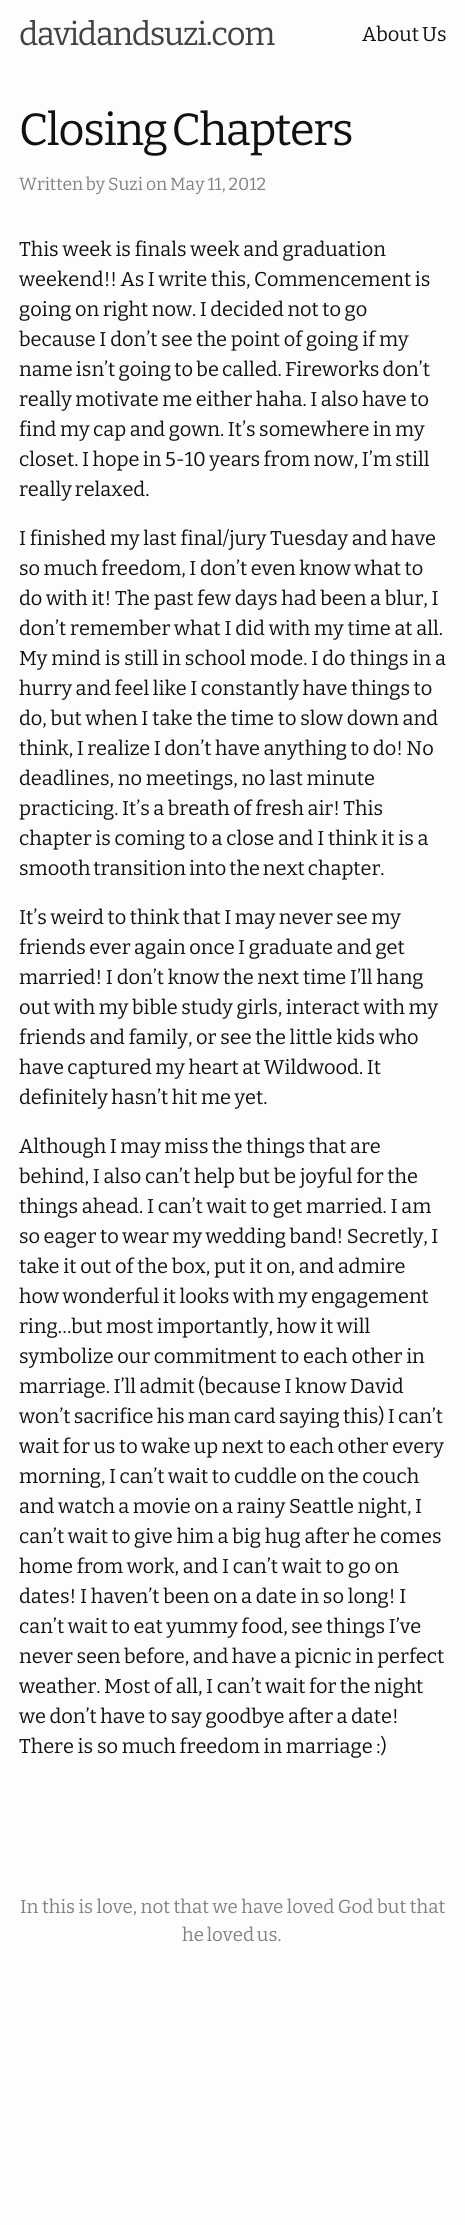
#include <cairo/cairo.h>
#include <math.h>
#include <stddef.h>


static void draw_spaced(cairo_t *cr, double x, double y, const char *s, double letter, double word) {
  cairo_move_to(cr, x, y);
  while (*s) {
    char ch[5] = {0};
    int n = 0;
    do ch[n++] = *s++; while ((*s & 0xC0) == 0x80);
    cairo_show_text(cr, ch);
    cairo_rel_move_to(cr, letter + word * (*ch == ' '), 0);
  }
}

static void draw(cairo_t *cr) {
  cairo_set_source_rgb(cr, 253 / 255.0, 253 / 255.0, 253 / 255.0);
  cairo_paint(cr);
  cairo_select_font_face(cr, "Bitter", CAIRO_FONT_SLANT_NORMAL, CAIRO_FONT_WEIGHT_NORMAL);
  cairo_set_font_size(cr, 32.5);
  cairo_set_source_rgb(cr, 66 / 255.0, 66 / 255.0, 66 / 255.0);
  draw_spaced(cr, 19, 45, "davidandsuzi.com", -1.25, 0);
  cairo_set_font_size(cr, 20);
  cairo_set_source_rgb(cr, 17 / 255.0, 17 / 255.0, 17 / 255.0);
  draw_spaced(cr, 362, 41, "About Us", 0, -1);
  cairo_set_font_size(cr, 45);
  draw_spaced(cr, 19, 145, "Closing Chapters", -1.25, -3);
  cairo_set_font_size(cr, 17.5);
  cairo_set_source_rgb(cr, 130 / 255.0, 130 / 255.0, 130 / 255.0);
  draw_spaced(cr, 19, 190, "Written by", 0, -1);
  cairo_move_to(cr, 108, 190);
  cairo_show_text(cr, "Suzi");
  cairo_move_to(cr, 146, 190);
  cairo_show_text(cr, "on");
  draw_spaced(cr, 170, 190, "May 11, 2012", 0, -0.5);
  cairo_set_font_size(cr, 20);
  cairo_set_source_rgb(cr, 17 / 255.0, 17 / 255.0, 17 / 255.0);
  draw_spaced(cr, 19, 256, "This week is finals week and graduation", 0, -0.25);
  draw_spaced(cr, 19, 286, "weekend!! As I write this, Commencement is", 0, -0.5);
  draw_spaced(cr, 19, 316, "going on right now. I decided not to go", 0, -0.5);
  draw_spaced(cr, 19, 346, "because I don’t see the point of going if my", 0, -0.25);
  draw_spaced(cr, 19, 376, "name isn’t going to be called. Fireworks don’t", 0, -0.75);
  draw_spaced(cr, 19, 406, "really motivate me either haha. I also have to", 0, -0.5);
  draw_spaced(cr, 19, 436, "find my cap and gown. It’s somewhere in my", 0, -0.5);
  draw_spaced(cr, 19, 466, "closet. I hope in 5-10 years from now, I’m still", 0, -0.5);
  draw_spaced(cr, 19, 496, "really relaxed.", 0, -1);
  draw_spaced(cr, 19, 545, "I finished my last final/jury Tuesday and have", 0, -0.25);
  draw_spaced(cr, 19, 575, "so much freedom, I don’t even know what to", 0, -0.5);
  draw_spaced(cr, 19, 605, "do with it! The past few days had been a blur, I", 0, -0.3);
  draw_spaced(cr, 19, 635, "don’t remember what I did with my time at all.", 0, -0.25);
  draw_spaced(cr, 19, 665, "My mind is still in school mode. I do things in a", 0, -0.1);
  draw_spaced(cr, 19, 695, "hurry and feel like I constantly have things to", 0, -0.5);
  draw_spaced(cr, 19, 725, "do, but when I take the time to slow down and", 0, -0.25);
  draw_spaced(cr, 19, 755, "think, I realize I don’t have anything to do! No", 0, -0.5);
  draw_spaced(cr, 19, 785, "deadlines, no meetings, no last minute", 0, -0.25);
  draw_spaced(cr, 19, 815, "practicing. It’s a breath of fresh air! This", 0, -0.5);
  draw_spaced(cr, 19, 845, "chapter is coming to a close and I think it is a", 0, -0.25);
  draw_spaced(cr, 19, 875, "smooth transition into the next chapter.", 0, -1);
  draw_spaced(cr, 19, 924, "It’s weird to think that I may never see my", 0, -0.5);
  draw_spaced(cr, 19, 954, "friends ever again once I graduate and get", 0, -0.5);
  draw_spaced(cr, 19, 984, "married! I don’t know the next time I’ll hang", 0, -0.25);
  draw_spaced(cr, 19, 1014, "out with my bible study girls, interact with my", 0, -0.5);
  draw_spaced(cr, 19, 1044, "friends and family, or see the little kids who", 0, -0.3);
  draw_spaced(cr, 19, 1074, "have captured my heart at Wildwood. It", 0, -0.5);
  draw_spaced(cr, 19, 1104, "definitely hasn’t hit me yet.", 0, -0.5);
  draw_spaced(cr, 19, 1153, "Although I may miss the things that are", 0, -0.5);
  draw_spaced(cr, 19, 1183, "behind, I also can’t help but be joyful for the", 0, -0.25);
  draw_spaced(cr, 19, 1213, "things ahead. I can’t wait to get married. I am", 0, -0.25);
  draw_spaced(cr, 19, 1243, "so eager to wear my wedding band! Secretly, I", 0, -0.5);
  draw_spaced(cr, 19, 1273, "take it out of the box, put it on, and admire", 0, -0.25);
  draw_spaced(cr, 19, 1303, "how wonderful it looks with my engagement", 0, -0.5);
  draw_spaced(cr, 19, 1333, "ring…but most importantly, how it will", 0, -0.5);
  draw_spaced(cr, 19, 1363, "symbolize our commitment to each other in", 0, -0.25);
  draw_spaced(cr, 19, 1393, "marriage. I’ll admit (because I know David", 0, -0.5);
  draw_spaced(cr, 19, 1423, "won’t sacrifice his man card saying this) I can’t", 0, -0.75);
  draw_spaced(cr, 19, 1453, "wait for us to wake up next to each other every", 0, -0.5);
  draw_spaced(cr, 19, 1483, "morning, I can’t wait to cuddle on the couch", 0, -0.5);
  draw_spaced(cr, 19, 1513, "and watch a movie on a rainy Seattle night, I", 0, -0.5);
  draw_spaced(cr, 19, 1543, "can’t wait to give him a big hug after he comes", 0, -0.3);
  draw_spaced(cr, 19, 1573, "home from work, and I can’t wait to go on", 0, -0.25);
  draw_spaced(cr, 19, 1603, "dates! I haven’t been on a date in so long! I", 0, -0.25);
  draw_spaced(cr, 19, 1633, "can’t wait to eat yummy food, see things I’ve", 0, -0.5);
  draw_spaced(cr, 19, 1663, "never seen before, and have a picnic in perfect", 0, -0.5);
  draw_spaced(cr, 19, 1693, "weather. Most of all, I can’t wait for the night", 0, -0.5);
  draw_spaced(cr, 19, 1723, "we don’t have to say goodbye after a date!", 0, -0.5);
  draw_spaced(cr, 19, 1753, "There is so much freedom in marriage :)", 0, -0.25);
  cairo_set_font_size(cr, 18.75);
  cairo_set_source_rgb(cr, 130 / 255.0, 130 / 255.0, 130 / 255.0);
  draw_spaced(cr, 20, 1913, "In this is love, not that we have loved God but that", 0, -0.25);
  draw_spaced(cr, 182, 1941, "he loved us.", 0, -1);
}

int main(void) {
  cairo_surface_t *surface = cairo_image_surface_create(CAIRO_FORMAT_RGB24, 465, 2225);
  cairo_t *cr = cairo_create(surface);
  cairo_font_options_t *options = cairo_font_options_create();
  cairo_font_options_set_hint_metrics(options, CAIRO_HINT_METRICS_OFF);
  cairo_font_options_set_hint_style(options, CAIRO_HINT_STYLE_NONE);
  cairo_set_font_options(cr, options);
  cairo_set_miter_limit(cr, 4);
  draw(cr);
  cairo_surface_write_to_png(surface, "out.png");
  cairo_font_options_destroy(options);
  cairo_destroy(cr);
  cairo_surface_destroy(surface);
  return 0;
}
